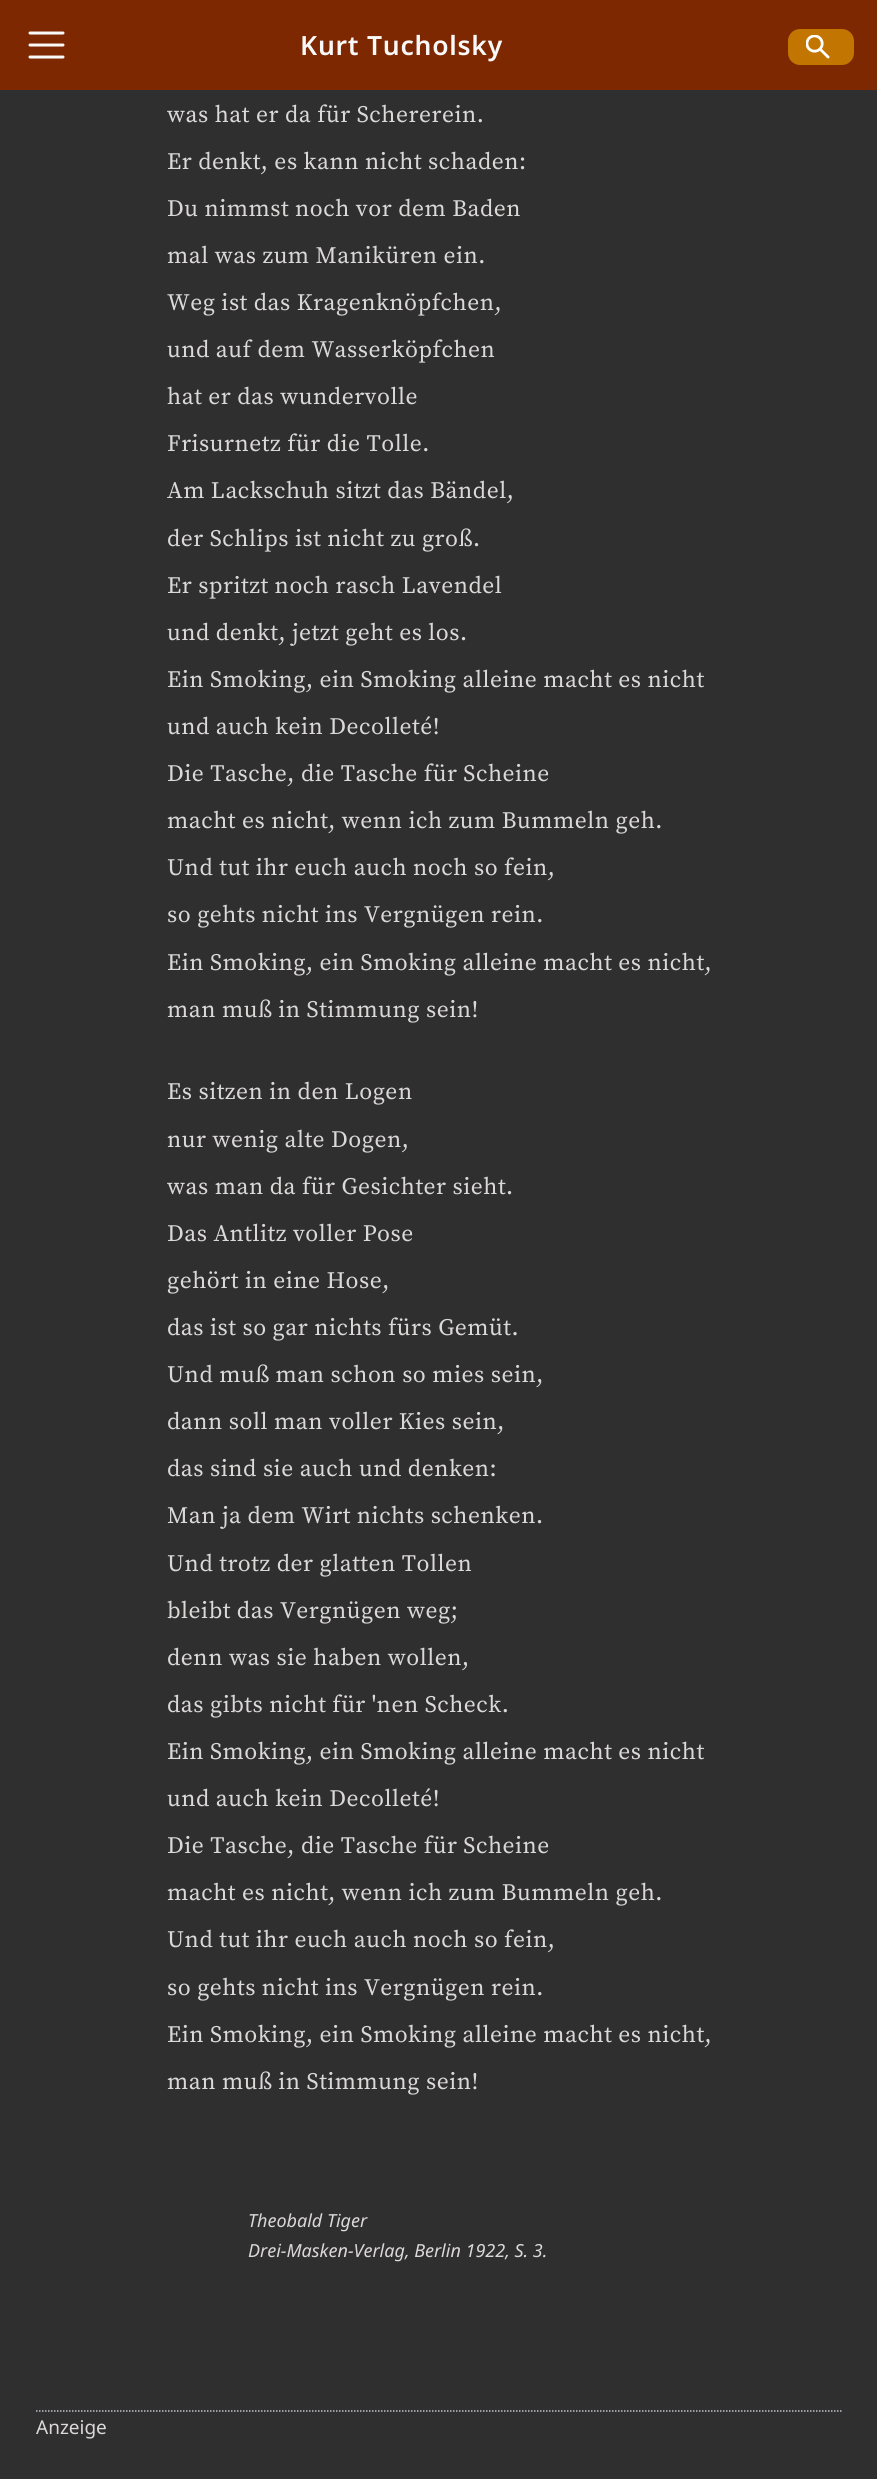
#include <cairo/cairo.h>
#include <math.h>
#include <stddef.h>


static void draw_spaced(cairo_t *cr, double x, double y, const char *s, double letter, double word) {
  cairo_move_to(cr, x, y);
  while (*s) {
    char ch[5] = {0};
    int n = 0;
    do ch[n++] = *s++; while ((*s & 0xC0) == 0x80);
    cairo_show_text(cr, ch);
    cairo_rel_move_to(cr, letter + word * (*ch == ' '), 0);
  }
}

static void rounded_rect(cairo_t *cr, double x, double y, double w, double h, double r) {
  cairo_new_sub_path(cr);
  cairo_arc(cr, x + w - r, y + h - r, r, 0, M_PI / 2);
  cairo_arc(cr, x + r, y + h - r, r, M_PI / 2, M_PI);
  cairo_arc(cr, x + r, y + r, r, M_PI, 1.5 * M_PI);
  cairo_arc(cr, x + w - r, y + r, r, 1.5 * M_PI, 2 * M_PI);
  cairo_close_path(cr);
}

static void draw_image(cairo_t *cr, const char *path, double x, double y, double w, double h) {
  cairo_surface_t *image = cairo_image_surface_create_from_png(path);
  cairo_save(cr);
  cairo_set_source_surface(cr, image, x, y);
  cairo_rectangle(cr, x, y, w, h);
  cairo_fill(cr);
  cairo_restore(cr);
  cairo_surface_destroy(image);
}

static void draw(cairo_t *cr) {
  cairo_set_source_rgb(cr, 47 / 255.0, 47 / 255.0, 47 / 255.0);
  cairo_paint(cr);
  cairo_set_source_rgb(cr, 125 / 255.0, 40 / 255.0, 0);
  cairo_rectangle(cr, 0, 0, 877, 90);
  cairo_fill(cr);
  cairo_new_path(cr);
  cairo_move_to(cr, 30, 33);
  cairo_line_to(cr, 63, 33);
  cairo_move_to(cr, 30, 45);
  cairo_line_to(cr, 63, 45);
  cairo_move_to(cr, 30, 57);
  cairo_line_to(cr, 63, 57);
  cairo_set_source_rgb(cr, 249 / 255.0, 249 / 255.0, 249 / 255.0);
  cairo_set_line_width(cr, 3);
  cairo_set_line_cap(cr, CAIRO_LINE_CAP_ROUND);
  cairo_stroke(cr);
  cairo_set_source_rgb(cr, 194 / 255.0, 117 / 255.0, 1 / 255.0);
  rounded_rect(cr, 788, 29, 66, 36, 12);
  cairo_fill(cr);
  draw_image(cr, "images/1.png", 806, 35, 24, 24);
  cairo_new_path(cr);
  cairo_move_to(cr, 36, 2411);
  cairo_line_to(cr, 841.5, 2411);
  cairo_set_source_rgb(cr, 190 / 255.0, 195 / 255.0, 201 / 255.0);
  cairo_set_line_width(cr, 1.5);
  cairo_set_line_cap(cr, CAIRO_LINE_CAP_BUTT);
  cairo_set_dash(cr, (double[]){1.5, 1.5}, 2, 0);
  cairo_stroke(cr);
  cairo_select_font_face(cr, "Noto Sans SemiBold", CAIRO_FONT_SLANT_NORMAL, CAIRO_FONT_WEIGHT_NORMAL);
  cairo_set_font_size(cr, 26.5);
  cairo_set_source_rgb(cr, 249 / 255.0, 249 / 255.0, 249 / 255.0);
  draw_spaced(cr, 300, 55, "Kurt Tucholsky", 0.75, 0);
  cairo_select_font_face(cr, "Source Serif Pro", CAIRO_FONT_SLANT_NORMAL, CAIRO_FONT_WEIGHT_NORMAL);
  cairo_set_font_size(cr, 23.55);
  cairo_set_source_rgb(cr, 219 / 255.0, 216 / 255.0, 216 / 255.0);
  draw_spaced(cr, 167, 122, "was hat er da für Schererein.", 0.5, 0);
  draw_spaced(cr, 167, 169, "Er denkt, es kann nicht schaden:", 0.5, 0);
  draw_spaced(cr, 167, 216, "Du nimmst noch vor dem Baden", 0.5, 0);
  draw_spaced(cr, 167, 263, "mal was zum Maniküren ein.", 0.5, 0);
  draw_spaced(cr, 167, 310, "Weg ist das Kragenknöpfchen,", 0.5, 0);
  draw_spaced(cr, 167, 357, "und auf dem Wasserköpfchen", 0.5, 0);
  draw_spaced(cr, 167, 404, "hat er das wundervolle", 0.5, 0);
  draw_spaced(cr, 167, 451, "Frisurnetz für die Tolle.", 0.5, 0);
  draw_spaced(cr, 167, 498, "Am Lackschuh sitzt das Bändel,", 0.5, 0);
  draw_spaced(cr, 167, 546, "der Schlips ist nicht zu groß.", 0.5, 0);
  draw_spaced(cr, 167, 593, "Er spritzt noch rasch Lavendel", 0.5, 0);
  draw_spaced(cr, 167, 640, "und denkt, jetzt geht es los.", 0.5, 0);
  draw_spaced(cr, 167, 687, "Ein Smoking, ein Smoking alleine macht es nicht", 0.5, 0);
  draw_spaced(cr, 167, 734, "und auch kein Decolleté!", 0.5, 0);
  draw_spaced(cr, 167, 781, "Die Tasche, die Tasche für Scheine", 0.5, 0);
  draw_spaced(cr, 167, 828, "macht es nicht, wenn ich zum Bummeln geh.", 0.5, 0);
  draw_spaced(cr, 167, 875, "Und tut ihr euch auch noch so fein,", 0.5, 0);
  draw_spaced(cr, 167, 922, "so gehts nicht ins Vergnügen rein.", 0.5, 0);
  draw_spaced(cr, 167, 970, "Ein Smoking, ein Smoking alleine macht es nicht,", 0.5, 0);
  draw_spaced(cr, 167, 1017, "man muß in Stimmung sein!", 0.5, 0);
  draw_spaced(cr, 167, 1099, "Es sitzen in den Logen", 0.5, 0);
  draw_spaced(cr, 167, 1147, "nur wenig alte Dogen,", 0.5, 0);
  draw_spaced(cr, 167, 1194, "was man da für Gesichter sieht.", 0.5, 0);
  draw_spaced(cr, 167, 1241, "Das Antlitz voller Pose", 0.5, 0);
  draw_spaced(cr, 167, 1288, "gehört in eine Hose,", 0.5, 0);
  draw_spaced(cr, 167, 1335, "das ist so gar nichts fürs Gemüt.", 0.5, 0);
  draw_spaced(cr, 167, 1382, "Und muß man schon so mies sein,", 0.5, 0);
  draw_spaced(cr, 167, 1429, "dann soll man voller Kies sein,", 0.5, 0);
  draw_spaced(cr, 167, 1476, "das sind sie auch und denken:", 0.5, 0);
  draw_spaced(cr, 167, 1523, "Man ja dem Wirt nichts schenken.", 0.5, 0);
  draw_spaced(cr, 167, 1571, "Und trotz der glatten Tollen", 0.5, 0);
  draw_spaced(cr, 167, 1618, "bleibt das Vergnügen weg;", 0.5, 0);
  draw_spaced(cr, 167, 1665, "denn was sie haben wollen,", 0.5, 0);
  draw_spaced(cr, 167, 1712, "das gibts nicht für 'nen Scheck.", 0.5, 0);
  draw_spaced(cr, 167, 1759, "Ein Smoking, ein Smoking alleine macht es nicht", 0.5, 0);
  draw_spaced(cr, 167, 1806, "und auch kein Decolleté!", 0.5, 0);
  draw_spaced(cr, 167, 1853, "Die Tasche, die Tasche für Scheine", 0.5, 0);
  draw_spaced(cr, 167, 1900, "macht es nicht, wenn ich zum Bummeln geh.", 0.5, 0);
  draw_spaced(cr, 167, 1947, "Und tut ihr euch auch noch so fein,", 0.5, 0);
  draw_spaced(cr, 167, 1995, "so gehts nicht ins Vergnügen rein.", 0.5, 0);
  draw_spaced(cr, 167, 2042, "Ein Smoking, ein Smoking alleine macht es nicht,", 0.5, 0);
  draw_spaced(cr, 167, 2089, "man muß in Stimmung sein!", 0.5, 0);
  cairo_select_font_face(cr, "Noto Sans", CAIRO_FONT_SLANT_ITALIC, CAIRO_FONT_WEIGHT_NORMAL);
  cairo_set_font_size(cr, 18);
  cairo_move_to(cr, 248, 2227);
  cairo_show_text(cr, "Theobald Tiger");
  cairo_move_to(cr, 248, 2257);
  cairo_show_text(cr, "Drei-Masken-Verlag, Berlin 1922, S. 3.");
  cairo_select_font_face(cr, "Noto Sans", CAIRO_FONT_SLANT_NORMAL, CAIRO_FONT_WEIGHT_NORMAL);
  cairo_set_font_size(cr, 19);
  cairo_move_to(cr, 36, 2434);
  cairo_show_text(cr, "Anzeige");
}

int main(void) {
  cairo_surface_t *surface = cairo_image_surface_create(CAIRO_FORMAT_RGB24, 877, 2479);
  cairo_t *cr = cairo_create(surface);
  cairo_font_options_t *options = cairo_font_options_create();
  cairo_font_options_set_hint_metrics(options, CAIRO_HINT_METRICS_OFF);
  cairo_font_options_set_hint_style(options, CAIRO_HINT_STYLE_NONE);
  cairo_set_font_options(cr, options);
  cairo_set_miter_limit(cr, 4);
  draw(cr);
  cairo_surface_write_to_png(surface, "out.png");
  cairo_font_options_destroy(options);
  cairo_destroy(cr);
  cairo_surface_destroy(surface);
  return 0;
}
